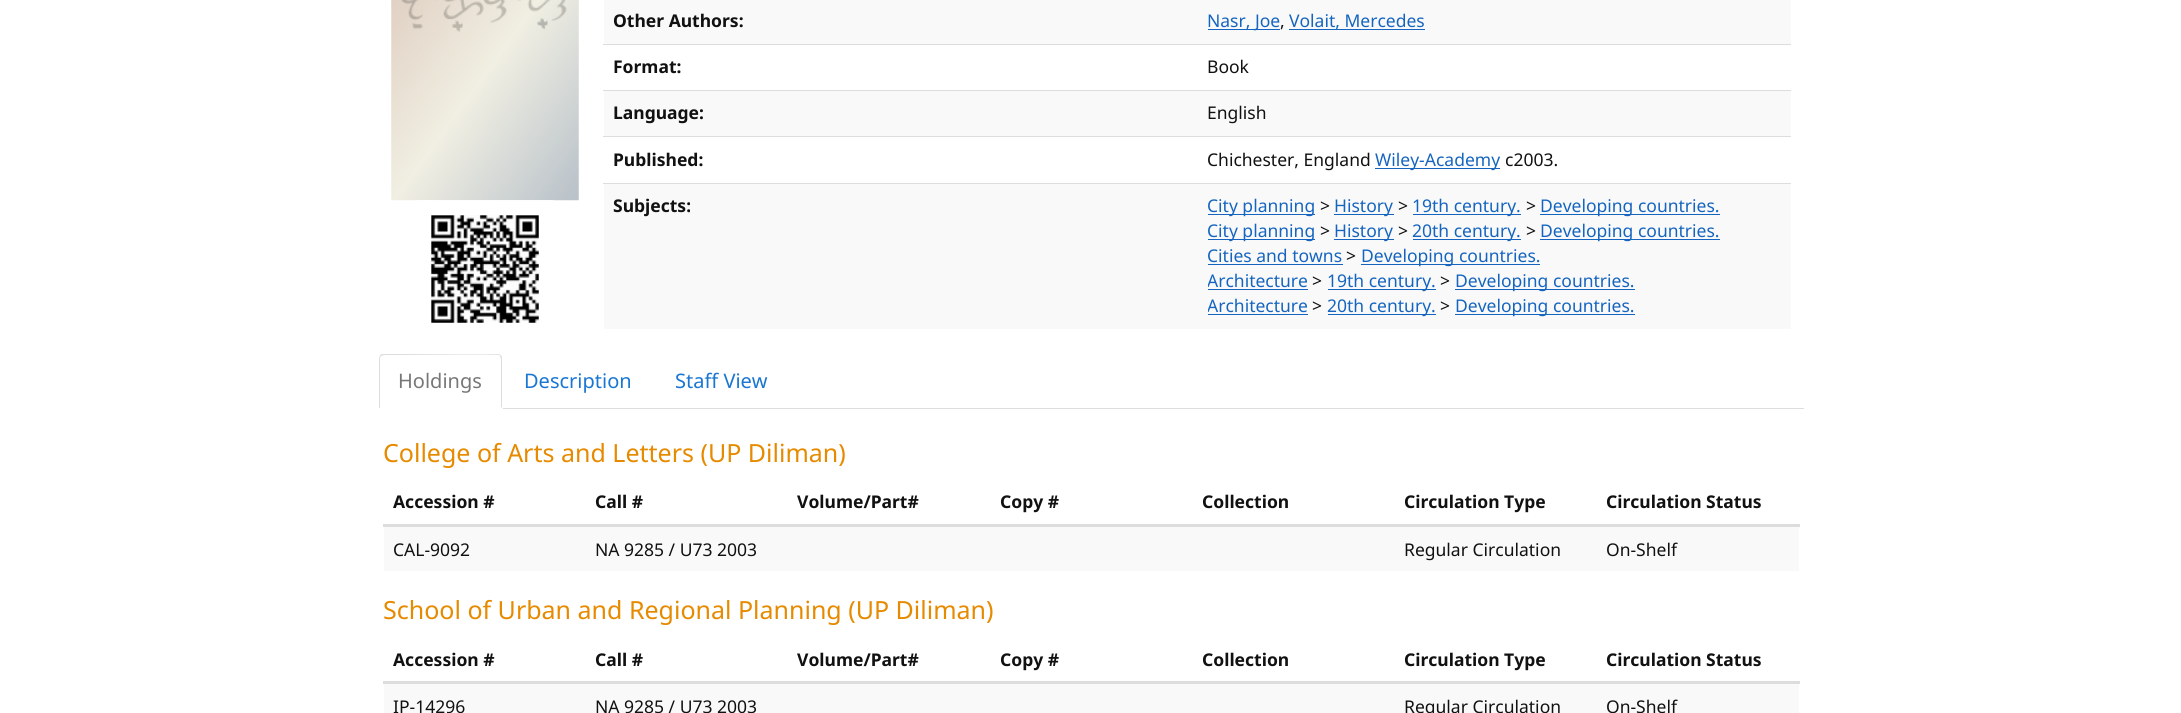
#include <cairo/cairo.h>
#include <math.h>
#include <stddef.h>


static void draw_image(cairo_t *cr, const char *path, double x, double y, double w, double h) {
  cairo_surface_t *image = cairo_image_surface_create_from_png(path);
  cairo_save(cr);
  cairo_set_source_surface(cr, image, x, y);
  cairo_rectangle(cr, x, y, w, h);
  cairo_fill(cr);
  cairo_restore(cr);
  cairo_surface_destroy(image);
}

static void draw(cairo_t *cr) {
  cairo_set_source_rgb(cr, 1, 1, 1);
  cairo_paint(cr);
  draw_image(cr, "images/1.png", 391, 0, 188, 201);
  draw_image(cr, "images/2.png", 416, 200, 138, 123);
  cairo_set_source_rgb(cr, 249 / 255.0, 249 / 255.0, 249 / 255.0);
  cairo_rectangle(cr, 604, 0, 1187, 44);
  cairo_fill(cr);
  cairo_set_source_rgb(cr, 21 / 255.0, 101 / 255.0, 192 / 255.0);
  cairo_rectangle(cr, 1208, 29, 72, 1);
  cairo_fill(cr);
  cairo_rectangle(cr, 1289, 29, 136, 1);
  cairo_fill(cr);
  cairo_set_source_rgb(cr, 221 / 255.0, 221 / 255.0, 221 / 255.0);
  cairo_rectangle(cr, 603, 44, 1188, 1);
  cairo_fill(cr);
  cairo_set_source_rgb(cr, 249 / 255.0, 249 / 255.0, 249 / 255.0);
  cairo_rectangle(cr, 604, 91, 1187, 45);
  cairo_fill(cr);
  cairo_set_source_rgb(cr, 221 / 255.0, 221 / 255.0, 221 / 255.0);
  cairo_rectangle(cr, 603, 90, 1188, 1);
  cairo_fill(cr);
  cairo_rectangle(cr, 603, 136, 1188, 1);
  cairo_fill(cr);
  cairo_set_source_rgb(cr, 21 / 255.0, 101 / 255.0, 192 / 255.0);
  cairo_rectangle(cr, 1375, 168, 125, 1);
  cairo_fill(cr);
  cairo_set_source_rgb(cr, 249 / 255.0, 249 / 255.0, 249 / 255.0);
  cairo_rectangle(cr, 604, 184, 1187, 145);
  cairo_fill(cr);
  cairo_set_source_rgb(cr, 221 / 255.0, 221 / 255.0, 221 / 255.0);
  cairo_rectangle(cr, 603, 183, 1188, 1);
  cairo_fill(cr);
  cairo_set_source_rgb(cr, 21 / 255.0, 101 / 255.0, 192 / 255.0);
  cairo_rectangle(cr, 1208, 214, 107, 1);
  cairo_fill(cr);
  cairo_rectangle(cr, 1334, 214, 60, 1);
  cairo_fill(cr);
  cairo_rectangle(cr, 1413, 214, 108, 1);
  cairo_fill(cr);
  cairo_rectangle(cr, 1540, 214, 180, 1);
  cairo_fill(cr);
  cairo_rectangle(cr, 1208, 239, 107, 1);
  cairo_fill(cr);
  cairo_rectangle(cr, 1334, 239, 60, 1);
  cairo_fill(cr);
  cairo_rectangle(cr, 1413, 239, 108, 1);
  cairo_fill(cr);
  cairo_rectangle(cr, 1540, 239, 180, 1);
  cairo_fill(cr);
  cairo_rectangle(cr, 1208, 264, 135, 1);
  cairo_fill(cr);
  cairo_rectangle(cr, 1361, 264, 179, 1);
  cairo_fill(cr);
  cairo_rectangle(cr, 1208, 289, 100, 1);
  cairo_fill(cr);
  cairo_rectangle(cr, 1328, 289, 108, 1);
  cairo_fill(cr);
  cairo_rectangle(cr, 1455, 289, 180, 1);
  cairo_fill(cr);
  cairo_rectangle(cr, 1208, 314, 100, 1);
  cairo_fill(cr);
  cairo_rectangle(cr, 1328, 314, 108, 1);
  cairo_fill(cr);
  cairo_rectangle(cr, 1455, 314, 180, 1);
  cairo_fill(cr);
  cairo_set_source_rgb(cr, 221 / 255.0, 221 / 255.0, 221 / 255.0);
  cairo_rectangle(cr, 503, 408, 1301, 1);
  cairo_fill(cr);
  cairo_new_path(cr);
  cairo_move_to(cr, 384, 354);
  cairo_curve_to(cr, 382, 354, 381, 354, 380, 355);
  cairo_line_to(cr, 381, 356);
  cairo_line_to(cr, 384, 355);
  cairo_line_to(cr, 403, 355);
  cairo_curve_to(cr, 413, 355, 498, 354, 499, 355);
  cairo_line_to(cr, 500, 356);
  cairo_line_to(cr, 501, 355);
  cairo_curve_to(cr, 500, 355, 499, 354, 498, 354);
  cairo_close_path(cr);
  cairo_fill(cr);
  cairo_new_path(cr);
  cairo_move_to(cr, 502, 408);
  cairo_line_to(cr, 502, 359);
  cairo_curve_to(cr, 502, 358, 502, 356, 501, 355);
  cairo_line_to(cr, 500, 356);
  cairo_line_to(cr, 501, 359);
  cairo_line_to(cr, 501, 407);
  cairo_close_path(cr);
  cairo_fill(cr);
  cairo_new_path(cr);
  cairo_move_to(cr, 380, 355);
  cairo_curve_to(cr, 380, 356, 379, 358, 379, 359);
  cairo_line_to(cr, 379, 408);
  cairo_line_to(cr, 380, 408);
  cairo_line_to(cr, 380, 358);
  cairo_line_to(cr, 381, 356);
  cairo_close_path(cr);
  cairo_fill(cr);
  cairo_rectangle(cr, 383, 524, 1417, 3);
  cairo_fill(cr);
  cairo_set_source_rgb(cr, 249 / 255.0, 249 / 255.0, 249 / 255.0);
  cairo_rectangle(cr, 384, 527, 1415, 44);
  cairo_fill(cr);
  cairo_set_source_rgb(cr, 221 / 255.0, 221 / 255.0, 221 / 255.0);
  cairo_rectangle(cr, 383, 681, 1417, 3);
  cairo_fill(cr);
  cairo_set_source_rgb(cr, 249 / 255.0, 249 / 255.0, 249 / 255.0);
  cairo_rectangle(cr, 384, 684, 1415, 29);
  cairo_fill(cr);
  cairo_select_font_face(cr, "Noto Sans", CAIRO_FONT_SLANT_NORMAL, CAIRO_FONT_WEIGHT_BOLD);
  cairo_set_font_size(cr, 17.5);
  cairo_set_source_rgb(cr, 17 / 255.0, 17 / 255.0, 17 / 255.0);
  cairo_move_to(cr, 613, 27);
  cairo_show_text(cr, "Other Authors:");
  cairo_select_font_face(cr, "Noto Sans", CAIRO_FONT_SLANT_NORMAL, CAIRO_FONT_WEIGHT_NORMAL);
  cairo_set_source_rgb(cr, 21 / 255.0, 101 / 255.0, 192 / 255.0);
  cairo_move_to(cr, 1207, 27);
  cairo_show_text(cr, "Nasr, Joe");
  cairo_set_source_rgb(cr, 17 / 255.0, 17 / 255.0, 17 / 255.0);
  cairo_move_to(cr, 1280, 27);
  cairo_show_text(cr, ",");
  cairo_set_source_rgb(cr, 21 / 255.0, 101 / 255.0, 192 / 255.0);
  cairo_move_to(cr, 1289, 27);
  cairo_show_text(cr, "Volait, Mercedes");
  cairo_select_font_face(cr, "Noto Sans", CAIRO_FONT_SLANT_NORMAL, CAIRO_FONT_WEIGHT_BOLD);
  cairo_set_source_rgb(cr, 17 / 255.0, 17 / 255.0, 17 / 255.0);
  cairo_move_to(cr, 613, 73);
  cairo_show_text(cr, "Format:");
  cairo_select_font_face(cr, "Noto Sans", CAIRO_FONT_SLANT_NORMAL, CAIRO_FONT_WEIGHT_NORMAL);
  cairo_move_to(cr, 1207, 73);
  cairo_show_text(cr, "Book");
  cairo_select_font_face(cr, "Noto Sans", CAIRO_FONT_SLANT_NORMAL, CAIRO_FONT_WEIGHT_BOLD);
  cairo_move_to(cr, 613, 119);
  cairo_show_text(cr, "Language:");
  cairo_select_font_face(cr, "Noto Sans", CAIRO_FONT_SLANT_NORMAL, CAIRO_FONT_WEIGHT_NORMAL);
  cairo_move_to(cr, 1207, 119);
  cairo_show_text(cr, "English");
  cairo_select_font_face(cr, "Noto Sans", CAIRO_FONT_SLANT_NORMAL, CAIRO_FONT_WEIGHT_BOLD);
  cairo_move_to(cr, 613, 166);
  cairo_show_text(cr, "Published:");
  cairo_select_font_face(cr, "Noto Sans", CAIRO_FONT_SLANT_NORMAL, CAIRO_FONT_WEIGHT_NORMAL);
  cairo_move_to(cr, 1207, 166);
  cairo_show_text(cr, "Chichester, England");
  cairo_set_source_rgb(cr, 21 / 255.0, 101 / 255.0, 192 / 255.0);
  cairo_move_to(cr, 1375, 166);
  cairo_show_text(cr, "Wiley-Academy");
  cairo_set_source_rgb(cr, 17 / 255.0, 17 / 255.0, 17 / 255.0);
  cairo_move_to(cr, 1505, 166);
  cairo_show_text(cr, "c2003.");
  cairo_select_font_face(cr, "Noto Sans", CAIRO_FONT_SLANT_NORMAL, CAIRO_FONT_WEIGHT_BOLD);
  cairo_move_to(cr, 613, 212);
  cairo_show_text(cr, "Subjects:");
  cairo_select_font_face(cr, "Noto Sans", CAIRO_FONT_SLANT_NORMAL, CAIRO_FONT_WEIGHT_NORMAL);
  cairo_set_source_rgb(cr, 21 / 255.0, 101 / 255.0, 192 / 255.0);
  cairo_move_to(cr, 1207, 212);
  cairo_show_text(cr, "City planning");
  cairo_set_source_rgb(cr, 17 / 255.0, 17 / 255.0, 17 / 255.0);
  cairo_move_to(cr, 1320, 212);
  cairo_show_text(cr, ">");
  cairo_set_source_rgb(cr, 21 / 255.0, 101 / 255.0, 192 / 255.0);
  cairo_move_to(cr, 1334, 212);
  cairo_show_text(cr, "History");
  cairo_set_source_rgb(cr, 17 / 255.0, 17 / 255.0, 17 / 255.0);
  cairo_move_to(cr, 1398, 212);
  cairo_show_text(cr, ">");
  cairo_set_source_rgb(cr, 21 / 255.0, 101 / 255.0, 192 / 255.0);
  cairo_move_to(cr, 1412, 212);
  cairo_show_text(cr, "19th century.");
  cairo_set_source_rgb(cr, 17 / 255.0, 17 / 255.0, 17 / 255.0);
  cairo_move_to(cr, 1526, 212);
  cairo_show_text(cr, ">");
  cairo_set_source_rgb(cr, 21 / 255.0, 101 / 255.0, 192 / 255.0);
  cairo_move_to(cr, 1540, 212);
  cairo_show_text(cr, "Developing countries.");
  cairo_move_to(cr, 1207, 237);
  cairo_show_text(cr, "City planning");
  cairo_set_source_rgb(cr, 17 / 255.0, 17 / 255.0, 17 / 255.0);
  cairo_move_to(cr, 1320, 237);
  cairo_show_text(cr, ">");
  cairo_set_source_rgb(cr, 21 / 255.0, 101 / 255.0, 192 / 255.0);
  cairo_move_to(cr, 1334, 237);
  cairo_show_text(cr, "History");
  cairo_set_source_rgb(cr, 17 / 255.0, 17 / 255.0, 17 / 255.0);
  cairo_move_to(cr, 1398, 237);
  cairo_show_text(cr, ">");
  cairo_set_source_rgb(cr, 21 / 255.0, 101 / 255.0, 192 / 255.0);
  cairo_move_to(cr, 1412, 237);
  cairo_show_text(cr, "20th century.");
  cairo_set_source_rgb(cr, 17 / 255.0, 17 / 255.0, 17 / 255.0);
  cairo_move_to(cr, 1526, 237);
  cairo_show_text(cr, ">");
  cairo_set_source_rgb(cr, 21 / 255.0, 101 / 255.0, 192 / 255.0);
  cairo_move_to(cr, 1540, 237);
  cairo_show_text(cr, "Developing countries.");
  cairo_move_to(cr, 1207, 262);
  cairo_show_text(cr, "Cities and towns");
  cairo_set_source_rgb(cr, 17 / 255.0, 17 / 255.0, 17 / 255.0);
  cairo_move_to(cr, 1346, 262);
  cairo_show_text(cr, ">");
  cairo_set_source_rgb(cr, 21 / 255.0, 101 / 255.0, 192 / 255.0);
  cairo_move_to(cr, 1361, 262);
  cairo_show_text(cr, "Developing countries.");
  cairo_save(cr);
  cairo_rectangle(cr, 1208, 194, 573, 125);
  cairo_clip(cr);
  cairo_move_to(cr, 1207, 287);
  cairo_show_text(cr, "Architecture");
  cairo_restore(cr);
  cairo_set_source_rgb(cr, 17 / 255.0, 17 / 255.0, 17 / 255.0);
  cairo_move_to(cr, 1312, 287);
  cairo_show_text(cr, ">");
  cairo_set_source_rgb(cr, 21 / 255.0, 101 / 255.0, 192 / 255.0);
  cairo_move_to(cr, 1327, 287);
  cairo_show_text(cr, "19th century.");
  cairo_set_source_rgb(cr, 17 / 255.0, 17 / 255.0, 17 / 255.0);
  cairo_move_to(cr, 1440, 287);
  cairo_show_text(cr, ">");
  cairo_set_source_rgb(cr, 21 / 255.0, 101 / 255.0, 192 / 255.0);
  cairo_move_to(cr, 1455, 287);
  cairo_show_text(cr, "Developing countries.");
  cairo_save(cr);
  cairo_rectangle(cr, 1208, 194, 573, 125);
  cairo_clip(cr);
  cairo_move_to(cr, 1207, 312);
  cairo_show_text(cr, "Architecture");
  cairo_restore(cr);
  cairo_set_source_rgb(cr, 17 / 255.0, 17 / 255.0, 17 / 255.0);
  cairo_move_to(cr, 1312, 312);
  cairo_show_text(cr, ">");
  cairo_set_source_rgb(cr, 21 / 255.0, 101 / 255.0, 192 / 255.0);
  cairo_move_to(cr, 1327, 312);
  cairo_show_text(cr, "20th century.");
  cairo_set_source_rgb(cr, 17 / 255.0, 17 / 255.0, 17 / 255.0);
  cairo_move_to(cr, 1440, 312);
  cairo_show_text(cr, ">");
  cairo_set_source_rgb(cr, 21 / 255.0, 101 / 255.0, 192 / 255.0);
  cairo_move_to(cr, 1455, 312);
  cairo_show_text(cr, "Developing countries.");
  cairo_set_font_size(cr, 20);
  cairo_set_source_rgb(cr, 119 / 255.0, 119 / 255.0, 119 / 255.0);
  cairo_move_to(cr, 398, 388);
  cairo_show_text(cr, "Holdings");
  cairo_set_source_rgb(cr, 25 / 255.0, 118 / 255.0, 210 / 255.0);
  cairo_move_to(cr, 524, 388);
  cairo_show_text(cr, "Description");
  cairo_move_to(cr, 675, 388);
  cairo_show_text(cr, "Staff View");
  cairo_set_font_size(cr, 25);
  cairo_set_source_rgb(cr, 230 / 255.0, 138 / 255.0, 0);
  cairo_move_to(cr, 383, 462);
  cairo_show_text(cr, "College of Arts and Letters (UP Diliman)");
  cairo_select_font_face(cr, "Noto Sans", CAIRO_FONT_SLANT_NORMAL, CAIRO_FONT_WEIGHT_BOLD);
  cairo_set_font_size(cr, 17.5);
  cairo_set_source_rgb(cr, 17 / 255.0, 17 / 255.0, 17 / 255.0);
  cairo_move_to(cr, 393, 508);
  cairo_show_text(cr, "Accession #");
  cairo_move_to(cr, 595, 508);
  cairo_show_text(cr, "Call #");
  cairo_move_to(cr, 797, 508);
  cairo_show_text(cr, "Volume/Part#");
  cairo_move_to(cr, 1000, 508);
  cairo_show_text(cr, "Copy #");
  cairo_move_to(cr, 1202, 508);
  cairo_show_text(cr, "Collection");
  cairo_move_to(cr, 1404, 508);
  cairo_show_text(cr, "Circulation Type");
  cairo_move_to(cr, 1606, 508);
  cairo_show_text(cr, "Circulation Status");
  cairo_select_font_face(cr, "Noto Sans", CAIRO_FONT_SLANT_NORMAL, CAIRO_FONT_WEIGHT_NORMAL);
  cairo_move_to(cr, 393, 556);
  cairo_show_text(cr, "CAL-9092");
  cairo_move_to(cr, 595, 556);
  cairo_show_text(cr, "NA 9285 / U73 2003");
  cairo_move_to(cr, 1404, 556);
  cairo_show_text(cr, "Regular Circulation");
  cairo_move_to(cr, 1606, 556);
  cairo_show_text(cr, "On-Shelf");
  cairo_set_font_size(cr, 25);
  cairo_set_source_rgb(cr, 230 / 255.0, 138 / 255.0, 0);
  cairo_move_to(cr, 383, 619);
  cairo_show_text(cr, "School of Urban and Regional Planning (UP Diliman)");
  cairo_select_font_face(cr, "Noto Sans", CAIRO_FONT_SLANT_NORMAL, CAIRO_FONT_WEIGHT_BOLD);
  cairo_set_font_size(cr, 17.5);
  cairo_set_source_rgb(cr, 17 / 255.0, 17 / 255.0, 17 / 255.0);
  cairo_move_to(cr, 393, 666);
  cairo_show_text(cr, "Accession #");
  cairo_move_to(cr, 595, 666);
  cairo_show_text(cr, "Call #");
  cairo_move_to(cr, 797, 666);
  cairo_show_text(cr, "Volume/Part#");
  cairo_move_to(cr, 1000, 666);
  cairo_show_text(cr, "Copy #");
  cairo_move_to(cr, 1202, 666);
  cairo_show_text(cr, "Collection");
  cairo_move_to(cr, 1404, 666);
  cairo_show_text(cr, "Circulation Type");
  cairo_move_to(cr, 1606, 666);
  cairo_show_text(cr, "Circulation Status");
  cairo_select_font_face(cr, "Noto Sans", CAIRO_FONT_SLANT_NORMAL, CAIRO_FONT_WEIGHT_NORMAL);
  cairo_move_to(cr, 393, 713);
  cairo_show_text(cr, "IP-14296");
  cairo_move_to(cr, 595, 713);
  cairo_show_text(cr, "NA 9285 / U73 2003");
  cairo_move_to(cr, 1404, 713);
  cairo_show_text(cr, "Regular Circulation");
  cairo_move_to(cr, 1606, 713);
  cairo_show_text(cr, "On-Shelf");
}

int main(void) {
  cairo_surface_t *surface = cairo_image_surface_create(CAIRO_FORMAT_RGB24, 2181, 713);
  cairo_t *cr = cairo_create(surface);
  cairo_font_options_t *options = cairo_font_options_create();
  cairo_font_options_set_hint_metrics(options, CAIRO_HINT_METRICS_OFF);
  cairo_font_options_set_hint_style(options, CAIRO_HINT_STYLE_NONE);
  cairo_set_font_options(cr, options);
  cairo_set_miter_limit(cr, 4);
  draw(cr);
  cairo_surface_write_to_png(surface, "out.png");
  cairo_font_options_destroy(options);
  cairo_destroy(cr);
  cairo_surface_destroy(surface);
  return 0;
}
